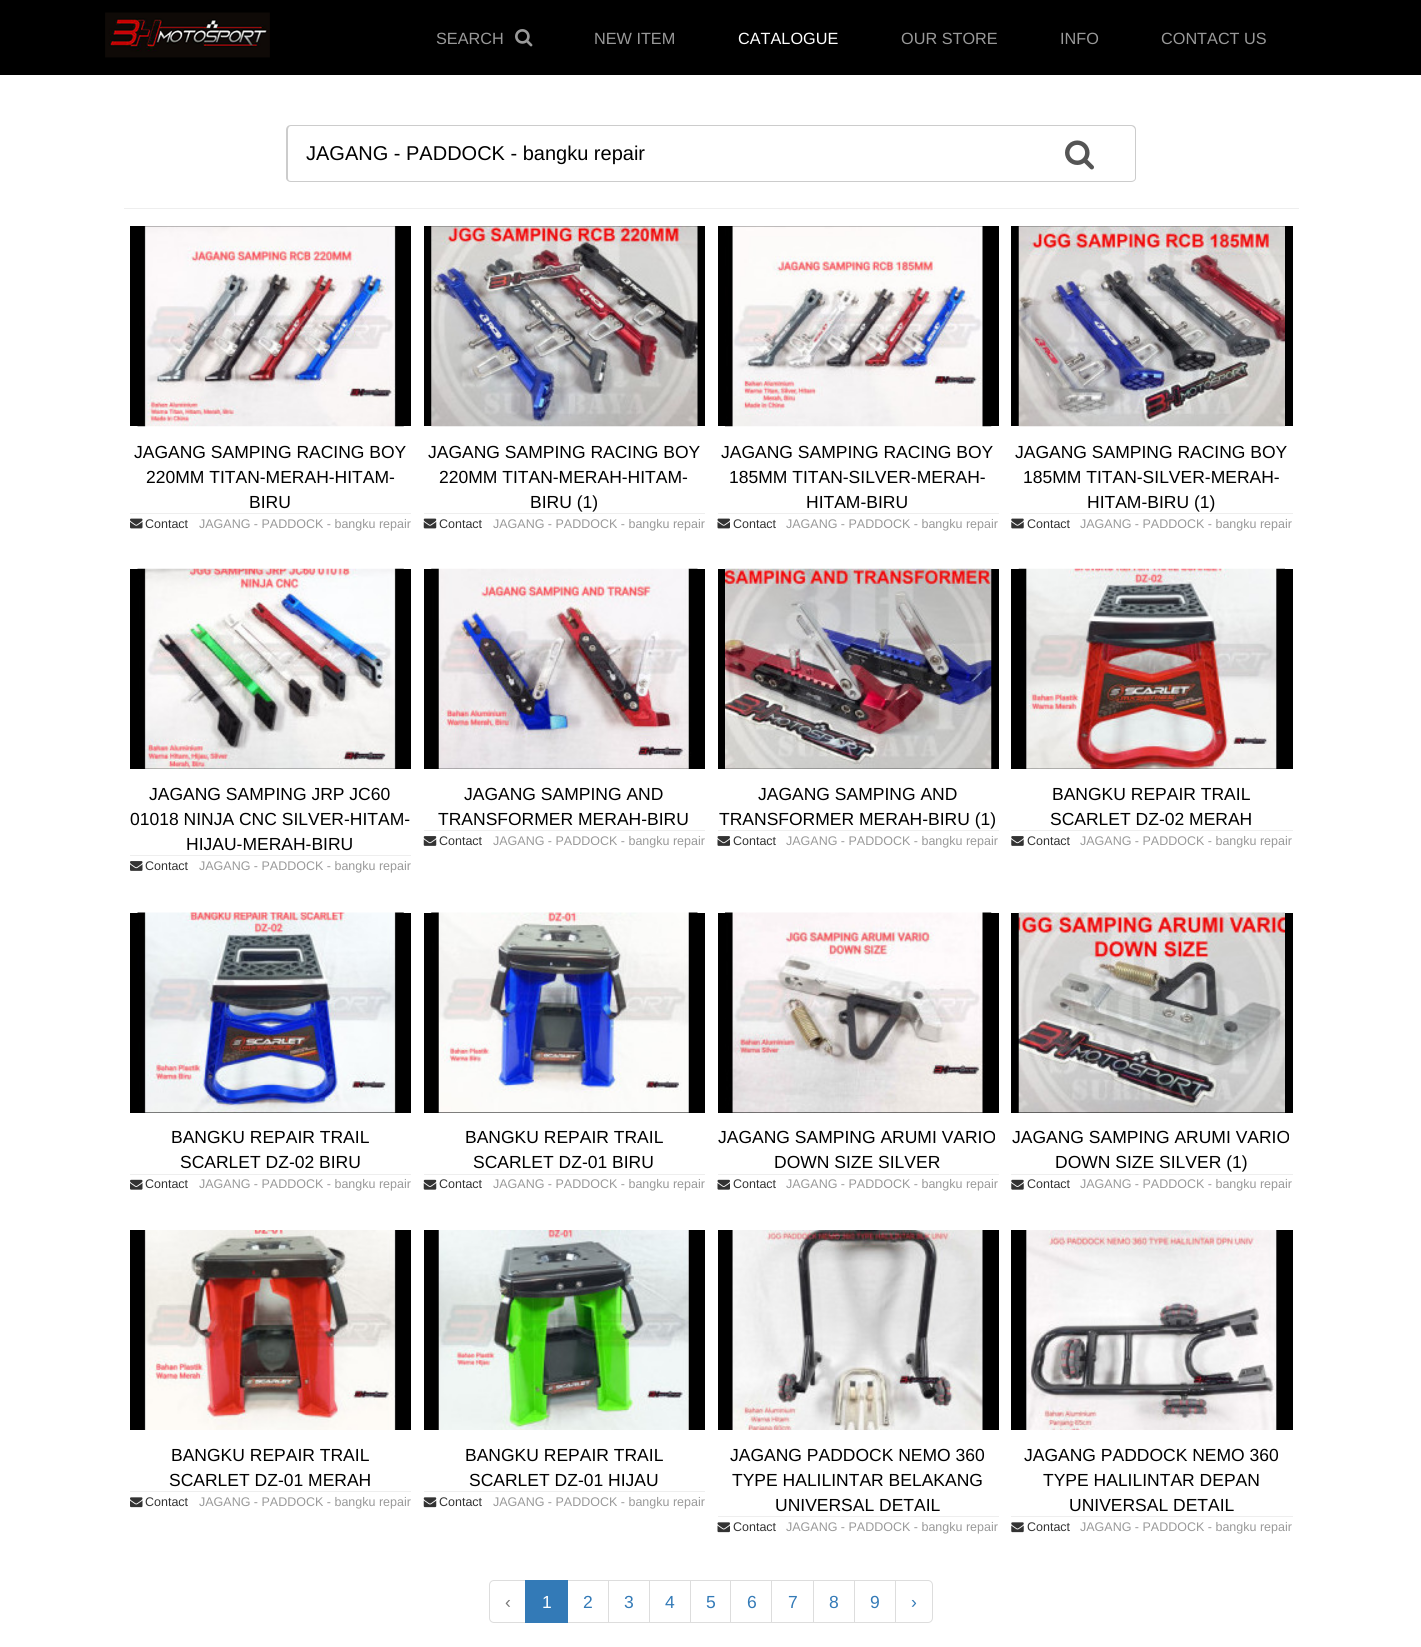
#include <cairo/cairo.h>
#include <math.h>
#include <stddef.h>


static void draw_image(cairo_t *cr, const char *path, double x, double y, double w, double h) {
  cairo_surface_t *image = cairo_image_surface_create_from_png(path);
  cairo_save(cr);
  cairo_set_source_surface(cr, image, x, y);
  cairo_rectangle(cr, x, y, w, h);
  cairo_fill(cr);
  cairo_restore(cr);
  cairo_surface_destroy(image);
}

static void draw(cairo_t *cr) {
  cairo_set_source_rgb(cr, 1, 1, 1);
  cairo_paint(cr);
  cairo_set_source_rgb(cr, 0, 0, 0);
  cairo_rectangle(cr, 0, 0, 1421, 75);
  cairo_fill(cr);
  draw_image(cr, "images/1.png", 105, 12, 165, 46);
  draw_image(cr, "images/2.png", 515, 29, 18, 18);
  cairo_set_source_rgb(cr, 204 / 255.0, 204 / 255.0, 204 / 255.0);
  cairo_set_fill_rule(cr, CAIRO_FILL_RULE_EVEN_ODD);
  cairo_new_path(cr);
  cairo_move_to(cr, 291, 125);
  cairo_line_to(cr, 1025, 125);
  cairo_line_to(cr, 1025, 182);
  cairo_line_to(cr, 291, 182);
  cairo_curve_to(cr, 288, 182, 286, 180, 286, 178);
  cairo_line_to(cr, 286, 130);
  cairo_curve_to(cr, 286, 127, 288, 125, 291, 125);
  cairo_close_path(cr);
  cairo_move_to(cr, 291, 126);
  cairo_line_to(cr, 1025, 126);
  cairo_line_to(cr, 1025, 181);
  cairo_line_to(cr, 291, 181);
  cairo_curve_to(cr, 289, 181, 288, 180, 288, 178);
  cairo_line_to(cr, 288, 130);
  cairo_curve_to(cr, 288, 128, 289, 126, 291, 126);
  cairo_close_path(cr);
  cairo_fill(cr);
  cairo_new_path(cr);
  cairo_move_to(cr, 1025, 125);
  cairo_line_to(cr, 1131, 125);
  cairo_curve_to(cr, 1134, 125, 1136, 127, 1136, 130);
  cairo_line_to(cr, 1136, 178);
  cairo_curve_to(cr, 1136, 180, 1134, 182, 1131, 182);
  cairo_line_to(cr, 1025, 182);
  cairo_close_path(cr);
  cairo_move_to(cr, 1025, 126);
  cairo_line_to(cr, 1131, 126);
  cairo_curve_to(cr, 1133, 126, 1135, 128, 1135, 130);
  cairo_line_to(cr, 1135, 178);
  cairo_curve_to(cr, 1135, 180, 1133, 181, 1131, 181);
  cairo_line_to(cr, 1025, 181);
  cairo_close_path(cr);
  cairo_fill(cr);
  draw_image(cr, "images/3.png", 1065, 140, 29, 30);
  cairo_set_source_rgb(cr, 238 / 255.0, 238 / 255.0, 238 / 255.0);
  cairo_rectangle(cr, 124, 208, 1175, 1);
  cairo_fill(cr);
  cairo_set_source_rgb(cr, 0, 0, 0);
  cairo_rectangle(cr, 130, 226, 281, 200);
  cairo_fill(cr);
  draw_image(cr, "images/4.png", 137, 226, 267, 201);
  cairo_set_source_rgb(cr, 238 / 255.0, 238 / 255.0, 238 / 255.0);
  cairo_rectangle(cr, 130, 513, 281, 1);
  cairo_fill(cr);
  draw_image(cr, "images/5.png", 130, 518, 13, 11);
  cairo_set_source_rgb(cr, 0, 0, 0);
  cairo_rectangle(cr, 424, 226, 281, 200);
  cairo_fill(cr);
  draw_image(cr, "images/6.png", 431, 226, 267, 201);
  cairo_set_source_rgb(cr, 238 / 255.0, 238 / 255.0, 238 / 255.0);
  cairo_rectangle(cr, 424, 513, 281, 1);
  cairo_fill(cr);
  draw_image(cr, "images/7.png", 423, 518, 14, 11);
  cairo_set_source_rgb(cr, 0, 0, 0);
  cairo_rectangle(cr, 718, 226, 281, 200);
  cairo_fill(cr);
  draw_image(cr, "images/8.png", 725, 226, 267, 201);
  cairo_set_source_rgb(cr, 238 / 255.0, 238 / 255.0, 238 / 255.0);
  cairo_rectangle(cr, 718, 513, 281, 1);
  cairo_fill(cr);
  draw_image(cr, "images/9.png", 717, 518, 13, 11);
  cairo_set_source_rgb(cr, 0, 0, 0);
  cairo_rectangle(cr, 1011, 226, 282, 200);
  cairo_fill(cr);
  draw_image(cr, "images/10.png", 1018, 226, 267, 201);
  cairo_set_source_rgb(cr, 238 / 255.0, 238 / 255.0, 238 / 255.0);
  cairo_rectangle(cr, 1011, 513, 282, 1);
  cairo_fill(cr);
  draw_image(cr, "images/11.png", 1011, 518, 13, 11);
  cairo_set_source_rgb(cr, 0, 0, 0);
  cairo_rectangle(cr, 130, 569, 281, 200);
  cairo_fill(cr);
  draw_image(cr, "images/12.png", 137, 568, 267, 201);
  cairo_set_source_rgb(cr, 238 / 255.0, 238 / 255.0, 238 / 255.0);
  cairo_rectangle(cr, 130, 855, 281, 1);
  cairo_fill(cr);
  draw_image(cr, "images/13.png", 130, 861, 13, 10);
  cairo_set_source_rgb(cr, 0, 0, 0);
  cairo_rectangle(cr, 424, 569, 281, 200);
  cairo_fill(cr);
  draw_image(cr, "images/14.png", 431, 568, 267, 201);
  cairo_set_source_rgb(cr, 238 / 255.0, 238 / 255.0, 238 / 255.0);
  cairo_rectangle(cr, 424, 830, 281, 1);
  cairo_fill(cr);
  draw_image(cr, "images/15.png", 423, 836, 14, 10);
  cairo_set_source_rgb(cr, 0, 0, 0);
  cairo_rectangle(cr, 718, 569, 281, 200);
  cairo_fill(cr);
  draw_image(cr, "images/16.png", 725, 568, 267, 201);
  cairo_set_source_rgb(cr, 238 / 255.0, 238 / 255.0, 238 / 255.0);
  cairo_rectangle(cr, 718, 830, 281, 1);
  cairo_fill(cr);
  draw_image(cr, "images/17.png", 717, 836, 13, 10);
  cairo_set_source_rgb(cr, 0, 0, 0);
  cairo_rectangle(cr, 1011, 569, 282, 200);
  cairo_fill(cr);
  draw_image(cr, "images/18.png", 1018, 568, 267, 201);
  cairo_set_source_rgb(cr, 238 / 255.0, 238 / 255.0, 238 / 255.0);
  cairo_rectangle(cr, 1011, 830, 282, 1);
  cairo_fill(cr);
  draw_image(cr, "images/19.png", 1011, 836, 13, 10);
  cairo_set_source_rgb(cr, 0, 0, 0);
  cairo_rectangle(cr, 130, 913, 281, 200);
  cairo_fill(cr);
  draw_image(cr, "images/20.png", 137, 912, 267, 201);
  cairo_set_source_rgb(cr, 238 / 255.0, 238 / 255.0, 238 / 255.0);
  cairo_rectangle(cr, 130, 1174, 281, 1);
  cairo_fill(cr);
  draw_image(cr, "images/21.png", 130, 1179, 13, 11);
  cairo_set_source_rgb(cr, 0, 0, 0);
  cairo_rectangle(cr, 424, 913, 281, 200);
  cairo_fill(cr);
  draw_image(cr, "images/22.png", 431, 912, 267, 201);
  cairo_set_source_rgb(cr, 238 / 255.0, 238 / 255.0, 238 / 255.0);
  cairo_rectangle(cr, 424, 1174, 281, 1);
  cairo_fill(cr);
  draw_image(cr, "images/23.png", 423, 1179, 14, 11);
  cairo_set_source_rgb(cr, 0, 0, 0);
  cairo_rectangle(cr, 718, 913, 281, 200);
  cairo_fill(cr);
  draw_image(cr, "images/24.png", 725, 912, 267, 201);
  cairo_set_source_rgb(cr, 238 / 255.0, 238 / 255.0, 238 / 255.0);
  cairo_rectangle(cr, 718, 1174, 281, 1);
  cairo_fill(cr);
  draw_image(cr, "images/25.png", 717, 1179, 13, 11);
  cairo_set_source_rgb(cr, 0, 0, 0);
  cairo_rectangle(cr, 1011, 913, 282, 200);
  cairo_fill(cr);
  draw_image(cr, "images/26.png", 1018, 912, 267, 201);
  cairo_set_source_rgb(cr, 238 / 255.0, 238 / 255.0, 238 / 255.0);
  cairo_rectangle(cr, 1011, 1174, 282, 1);
  cairo_fill(cr);
  draw_image(cr, "images/27.png", 1011, 1179, 13, 11);
  cairo_set_source_rgb(cr, 0, 0, 0);
  cairo_rectangle(cr, 130, 1230, 281, 200);
  cairo_fill(cr);
  draw_image(cr, "images/28.png", 144, 1230, 252, 200);
  cairo_set_source_rgb(cr, 238 / 255.0, 238 / 255.0, 238 / 255.0);
  cairo_rectangle(cr, 130, 1491, 281, 1);
  cairo_fill(cr);
  draw_image(cr, "images/29.png", 130, 1497, 13, 11);
  cairo_set_source_rgb(cr, 0, 0, 0);
  cairo_rectangle(cr, 424, 1230, 281, 200);
  cairo_fill(cr);
  draw_image(cr, "images/30.png", 438, 1230, 251, 200);
  cairo_set_source_rgb(cr, 238 / 255.0, 238 / 255.0, 238 / 255.0);
  cairo_rectangle(cr, 424, 1491, 281, 1);
  cairo_fill(cr);
  draw_image(cr, "images/31.png", 423, 1497, 14, 11);
  cairo_set_source_rgb(cr, 0, 0, 0);
  cairo_rectangle(cr, 718, 1230, 281, 200);
  cairo_fill(cr);
  draw_image(cr, "images/32.png", 732, 1230, 251, 200);
  cairo_set_source_rgb(cr, 238 / 255.0, 238 / 255.0, 238 / 255.0);
  cairo_rectangle(cr, 718, 1516, 281, 1);
  cairo_fill(cr);
  draw_image(cr, "images/33.png", 717, 1522, 13, 11);
  cairo_set_source_rgb(cr, 0, 0, 0);
  cairo_rectangle(cr, 1011, 1230, 282, 200);
  cairo_fill(cr);
  draw_image(cr, "images/34.png", 1026, 1230, 251, 200);
  cairo_set_source_rgb(cr, 238 / 255.0, 238 / 255.0, 238 / 255.0);
  cairo_rectangle(cr, 1011, 1516, 282, 1);
  cairo_fill(cr);
  draw_image(cr, "images/35.png", 1011, 1522, 13, 11);
  cairo_new_path(cr);
  cairo_move_to(cr, 494, 1580.5);
  cairo_line_to(cr, 525.5, 1580.5);
  cairo_line_to(cr, 525.5, 1622.5);
  cairo_line_to(cr, 494, 1622.5);
  cairo_curve_to(cr, 491.5, 1622.5, 489.5, 1620.5, 489.5, 1618);
  cairo_line_to(cr, 489.5, 1585);
  cairo_curve_to(cr, 489.5, 1582.5, 491.5, 1580.5, 494, 1580.5);
  cairo_close_path(cr);
  cairo_set_source_rgb(cr, 221 / 255.0, 221 / 255.0, 221 / 255.0);
  cairo_set_line_width(cr, 1);
  cairo_stroke(cr);
  cairo_rectangle(cr, 566.5, 1580.5, 42, 42);
  cairo_stroke(cr);
  cairo_set_source_rgb(cr, 51 / 255.0, 122 / 255.0, 183 / 255.0);
  cairo_rectangle(cr, 525, 1580, 43, 43);
  cairo_fill(cr);
  cairo_rectangle(cr, 608.5, 1580.5, 41, 42);
  cairo_set_source_rgb(cr, 221 / 255.0, 221 / 255.0, 221 / 255.0);
  cairo_stroke(cr);
  cairo_rectangle(cr, 649.5, 1580.5, 41, 42);
  cairo_stroke(cr);
  cairo_rectangle(cr, 690.5, 1580.5, 40, 42);
  cairo_stroke(cr);
  cairo_rectangle(cr, 730.5, 1580.5, 42, 42);
  cairo_stroke(cr);
  cairo_set_source_rgb(cr, 1, 1, 1);
  cairo_rectangle(cr, 772, 1581, 1, 41);
  cairo_fill(cr);
  cairo_rectangle(cr, 771.5, 1580.5, 42, 42);
  cairo_set_source_rgb(cr, 221 / 255.0, 221 / 255.0, 221 / 255.0);
  cairo_stroke(cr);
  cairo_rectangle(cr, 813.5, 1580.5, 41, 42);
  cairo_stroke(cr);
  cairo_rectangle(cr, 854.5, 1580.5, 41, 42);
  cairo_stroke(cr);
  cairo_set_source_rgb(cr, 1, 1, 1);
  cairo_new_path(cr);
  cairo_move_to(cr, 895.5, 1580.5);
  cairo_line_to(cr, 928, 1580.5);
  cairo_curve_to(cr, 930.5, 1580.5, 932.5, 1582.5, 932.5, 1585);
  cairo_line_to(cr, 932.5, 1618);
  cairo_curve_to(cr, 932.5, 1620.5, 930.5, 1622.5, 928, 1622.5);
  cairo_line_to(cr, 895.5, 1622.5);
  cairo_close_path(cr);
  cairo_fill_preserve(cr);
  cairo_set_source_rgb(cr, 221 / 255.0, 221 / 255.0, 221 / 255.0);
  cairo_stroke(cr);
  cairo_select_font_face(cr, "Liberation Sans", CAIRO_FONT_SLANT_NORMAL, CAIRO_FONT_WEIGHT_NORMAL);
  cairo_set_font_size(cr, 16.25);
  cairo_set_source_rgb(cr, 153 / 255.0, 153 / 255.0, 153 / 255.0);
  cairo_move_to(cr, 436, 44);
  cairo_show_text(cr, "SEARCH");
  cairo_move_to(cr, 594, 44);
  cairo_show_text(cr, "NEW ITEM");
  cairo_set_source_rgb(cr, 1, 1, 1);
  cairo_move_to(cr, 738, 44);
  cairo_show_text(cr, "CATALOGUE");
  cairo_set_source_rgb(cr, 153 / 255.0, 153 / 255.0, 153 / 255.0);
  cairo_move_to(cr, 901, 44);
  cairo_show_text(cr, "OUR STORE");
  cairo_move_to(cr, 1060, 44);
  cairo_show_text(cr, "INFO");
  cairo_move_to(cr, 1161, 44);
  cairo_show_text(cr, "CONTACT US");
  cairo_set_font_size(cr, 20);
  cairo_set_source_rgb(cr, 0, 0, 0);
  cairo_move_to(cr, 306, 160);
  cairo_show_text(cr, "JAGANG - PADDOCK - bangku repair");
  cairo_set_font_size(cr, 17.5);
  cairo_move_to(cr, 134, 458);
  cairo_show_text(cr, "JAGANG SAMPING RACING BOY");
  cairo_move_to(cr, 146, 483);
  cairo_show_text(cr, "220MM TITAN-MERAH-HITAM-");
  cairo_move_to(cr, 249, 508);
  cairo_show_text(cr, "BIRU");
  cairo_set_font_size(cr, 12.5);
  cairo_set_source_rgb(cr, 51 / 255.0, 51 / 255.0, 51 / 255.0);
  cairo_move_to(cr, 145, 528);
  cairo_show_text(cr, "Contact");
  cairo_set_source_rgb(cr, 153 / 255.0, 153 / 255.0, 153 / 255.0);
  cairo_move_to(cr, 199, 528);
  cairo_show_text(cr, "JAGANG - PADDOCK - bangku repair");
  cairo_set_font_size(cr, 17.5);
  cairo_set_source_rgb(cr, 0, 0, 0);
  cairo_move_to(cr, 428, 458);
  cairo_show_text(cr, "JAGANG SAMPING RACING BOY");
  cairo_move_to(cr, 439, 483);
  cairo_show_text(cr, "220MM TITAN-MERAH-HITAM-");
  cairo_move_to(cr, 530, 508);
  cairo_show_text(cr, "BIRU (1)");
  cairo_set_font_size(cr, 12.5);
  cairo_set_source_rgb(cr, 51 / 255.0, 51 / 255.0, 51 / 255.0);
  cairo_move_to(cr, 439, 528);
  cairo_show_text(cr, "Contact");
  cairo_set_source_rgb(cr, 153 / 255.0, 153 / 255.0, 153 / 255.0);
  cairo_move_to(cr, 493, 528);
  cairo_show_text(cr, "JAGANG - PADDOCK - bangku repair");
  cairo_set_font_size(cr, 17.5);
  cairo_set_source_rgb(cr, 0, 0, 0);
  cairo_move_to(cr, 721, 458);
  cairo_show_text(cr, "JAGANG SAMPING RACING BOY");
  cairo_move_to(cr, 729, 483);
  cairo_show_text(cr, "185MM TITAN-SILVER-MERAH-");
  cairo_move_to(cr, 806, 508);
  cairo_show_text(cr, "HITAM-BIRU");
  cairo_set_font_size(cr, 12.5);
  cairo_set_source_rgb(cr, 51 / 255.0, 51 / 255.0, 51 / 255.0);
  cairo_move_to(cr, 733, 528);
  cairo_show_text(cr, "Contact");
  cairo_set_source_rgb(cr, 153 / 255.0, 153 / 255.0, 153 / 255.0);
  cairo_move_to(cr, 786, 528);
  cairo_show_text(cr, "JAGANG - PADDOCK - bangku repair");
  cairo_set_font_size(cr, 17.5);
  cairo_set_source_rgb(cr, 0, 0, 0);
  cairo_move_to(cr, 1015, 458);
  cairo_show_text(cr, "JAGANG SAMPING RACING BOY");
  cairo_move_to(cr, 1023, 483);
  cairo_show_text(cr, "185MM TITAN-SILVER-MERAH-");
  cairo_move_to(cr, 1087, 508);
  cairo_show_text(cr, "HITAM-BIRU (1)");
  cairo_set_font_size(cr, 12.5);
  cairo_set_source_rgb(cr, 51 / 255.0, 51 / 255.0, 51 / 255.0);
  cairo_move_to(cr, 1027, 528);
  cairo_show_text(cr, "Contact");
  cairo_set_source_rgb(cr, 153 / 255.0, 153 / 255.0, 153 / 255.0);
  cairo_move_to(cr, 1080, 528);
  cairo_show_text(cr, "JAGANG - PADDOCK - bangku repair");
  cairo_set_font_size(cr, 17.5);
  cairo_set_source_rgb(cr, 0, 0, 0);
  cairo_move_to(cr, 149, 800);
  cairo_show_text(cr, "JAGANG SAMPING JRP JC60");
  cairo_move_to(cr, 130, 825);
  cairo_show_text(cr, "01018 NINJA CNC SILVER-HITAM-");
  cairo_move_to(cr, 186, 850);
  cairo_show_text(cr, "HIJAU-MERAH-BIRU");
  cairo_set_font_size(cr, 12.5);
  cairo_set_source_rgb(cr, 51 / 255.0, 51 / 255.0, 51 / 255.0);
  cairo_move_to(cr, 145, 870);
  cairo_show_text(cr, "Contact");
  cairo_set_source_rgb(cr, 153 / 255.0, 153 / 255.0, 153 / 255.0);
  cairo_move_to(cr, 199, 870);
  cairo_show_text(cr, "JAGANG - PADDOCK - bangku repair");
  cairo_set_font_size(cr, 17.5);
  cairo_set_source_rgb(cr, 0, 0, 0);
  cairo_move_to(cr, 464, 800);
  cairo_show_text(cr, "JAGANG SAMPING AND");
  cairo_move_to(cr, 438, 825);
  cairo_show_text(cr, "TRANSFORMER MERAH-BIRU");
  cairo_set_font_size(cr, 12.5);
  cairo_set_source_rgb(cr, 51 / 255.0, 51 / 255.0, 51 / 255.0);
  cairo_move_to(cr, 439, 845);
  cairo_show_text(cr, "Contact");
  cairo_set_source_rgb(cr, 153 / 255.0, 153 / 255.0, 153 / 255.0);
  cairo_move_to(cr, 493, 845);
  cairo_show_text(cr, "JAGANG - PADDOCK - bangku repair");
  cairo_set_font_size(cr, 17.5);
  cairo_set_source_rgb(cr, 0, 0, 0);
  cairo_move_to(cr, 758, 800);
  cairo_show_text(cr, "JAGANG SAMPING AND");
  cairo_move_to(cr, 719, 825);
  cairo_show_text(cr, "TRANSFORMER MERAH-BIRU (1)");
  cairo_set_font_size(cr, 12.5);
  cairo_set_source_rgb(cr, 51 / 255.0, 51 / 255.0, 51 / 255.0);
  cairo_move_to(cr, 733, 845);
  cairo_show_text(cr, "Contact");
  cairo_set_source_rgb(cr, 153 / 255.0, 153 / 255.0, 153 / 255.0);
  cairo_move_to(cr, 786, 845);
  cairo_show_text(cr, "JAGANG - PADDOCK - bangku repair");
  cairo_set_font_size(cr, 17.5);
  cairo_set_source_rgb(cr, 0, 0, 0);
  cairo_move_to(cr, 1052, 800);
  cairo_show_text(cr, "BANGKU REPAIR TRAIL");
  cairo_move_to(cr, 1050, 825);
  cairo_show_text(cr, "SCARLET DZ-02 MERAH");
  cairo_set_font_size(cr, 12.5);
  cairo_set_source_rgb(cr, 51 / 255.0, 51 / 255.0, 51 / 255.0);
  cairo_move_to(cr, 1027, 845);
  cairo_show_text(cr, "Contact");
  cairo_set_source_rgb(cr, 153 / 255.0, 153 / 255.0, 153 / 255.0);
  cairo_move_to(cr, 1080, 845);
  cairo_show_text(cr, "JAGANG - PADDOCK - bangku repair");
  cairo_set_font_size(cr, 17.5);
  cairo_set_source_rgb(cr, 0, 0, 0);
  cairo_move_to(cr, 171, 1143);
  cairo_show_text(cr, "BANGKU REPAIR TRAIL");
  cairo_move_to(cr, 180, 1168);
  cairo_show_text(cr, "SCARLET DZ-02 BIRU");
  cairo_set_font_size(cr, 12.5);
  cairo_set_source_rgb(cr, 51 / 255.0, 51 / 255.0, 51 / 255.0);
  cairo_move_to(cr, 145, 1188);
  cairo_show_text(cr, "Contact");
  cairo_set_source_rgb(cr, 153 / 255.0, 153 / 255.0, 153 / 255.0);
  cairo_move_to(cr, 199, 1188);
  cairo_show_text(cr, "JAGANG - PADDOCK - bangku repair");
  cairo_set_font_size(cr, 17.5);
  cairo_set_source_rgb(cr, 0, 0, 0);
  cairo_move_to(cr, 465, 1143);
  cairo_show_text(cr, "BANGKU REPAIR TRAIL");
  cairo_move_to(cr, 473, 1168);
  cairo_show_text(cr, "SCARLET DZ-01 BIRU");
  cairo_set_font_size(cr, 12.5);
  cairo_set_source_rgb(cr, 51 / 255.0, 51 / 255.0, 51 / 255.0);
  cairo_move_to(cr, 439, 1188);
  cairo_show_text(cr, "Contact");
  cairo_set_source_rgb(cr, 153 / 255.0, 153 / 255.0, 153 / 255.0);
  cairo_move_to(cr, 493, 1188);
  cairo_show_text(cr, "JAGANG - PADDOCK - bangku repair");
  cairo_set_font_size(cr, 17.5);
  cairo_set_source_rgb(cr, 0, 0, 0);
  cairo_move_to(cr, 718, 1143);
  cairo_show_text(cr, "JAGANG SAMPING ARUMI VARIO");
  cairo_move_to(cr, 774, 1168);
  cairo_show_text(cr, "DOWN SIZE SILVER");
  cairo_set_font_size(cr, 12.5);
  cairo_set_source_rgb(cr, 51 / 255.0, 51 / 255.0, 51 / 255.0);
  cairo_move_to(cr, 733, 1188);
  cairo_show_text(cr, "Contact");
  cairo_set_source_rgb(cr, 153 / 255.0, 153 / 255.0, 153 / 255.0);
  cairo_move_to(cr, 786, 1188);
  cairo_show_text(cr, "JAGANG - PADDOCK - bangku repair");
  cairo_set_font_size(cr, 17.5);
  cairo_set_source_rgb(cr, 0, 0, 0);
  cairo_move_to(cr, 1012, 1143);
  cairo_show_text(cr, "JAGANG SAMPING ARUMI VARIO");
  cairo_move_to(cr, 1055, 1168);
  cairo_show_text(cr, "DOWN SIZE SILVER (1)");
  cairo_set_font_size(cr, 12.5);
  cairo_set_source_rgb(cr, 51 / 255.0, 51 / 255.0, 51 / 255.0);
  cairo_move_to(cr, 1027, 1188);
  cairo_show_text(cr, "Contact");
  cairo_set_source_rgb(cr, 153 / 255.0, 153 / 255.0, 153 / 255.0);
  cairo_move_to(cr, 1080, 1188);
  cairo_show_text(cr, "JAGANG - PADDOCK - bangku repair");
  cairo_set_font_size(cr, 17.5);
  cairo_set_source_rgb(cr, 0, 0, 0);
  cairo_move_to(cr, 171, 1461);
  cairo_show_text(cr, "BANGKU REPAIR TRAIL");
  cairo_move_to(cr, 169, 1486);
  cairo_show_text(cr, "SCARLET DZ-01 MERAH");
  cairo_set_font_size(cr, 12.5);
  cairo_set_source_rgb(cr, 51 / 255.0, 51 / 255.0, 51 / 255.0);
  cairo_move_to(cr, 145, 1506);
  cairo_show_text(cr, "Contact");
  cairo_set_source_rgb(cr, 153 / 255.0, 153 / 255.0, 153 / 255.0);
  cairo_move_to(cr, 199, 1506);
  cairo_show_text(cr, "JAGANG - PADDOCK - bangku repair");
  cairo_set_font_size(cr, 17.5);
  cairo_set_source_rgb(cr, 0, 0, 0);
  cairo_move_to(cr, 465, 1461);
  cairo_show_text(cr, "BANGKU REPAIR TRAIL");
  cairo_move_to(cr, 469, 1486);
  cairo_show_text(cr, "SCARLET DZ-01 HIJAU");
  cairo_set_font_size(cr, 12.5);
  cairo_set_source_rgb(cr, 51 / 255.0, 51 / 255.0, 51 / 255.0);
  cairo_move_to(cr, 439, 1506);
  cairo_show_text(cr, "Contact");
  cairo_set_source_rgb(cr, 153 / 255.0, 153 / 255.0, 153 / 255.0);
  cairo_move_to(cr, 493, 1506);
  cairo_show_text(cr, "JAGANG - PADDOCK - bangku repair");
  cairo_set_font_size(cr, 17.5);
  cairo_set_source_rgb(cr, 0, 0, 0);
  cairo_move_to(cr, 730, 1461);
  cairo_show_text(cr, "JAGANG PADDOCK NEMO 360");
  cairo_move_to(cr, 732, 1486);
  cairo_show_text(cr, "TYPE HALILINTAR BELAKANG");
  cairo_move_to(cr, 775, 1511);
  cairo_show_text(cr, "UNIVERSAL DETAIL");
  cairo_set_font_size(cr, 12.5);
  cairo_set_source_rgb(cr, 51 / 255.0, 51 / 255.0, 51 / 255.0);
  cairo_move_to(cr, 733, 1531);
  cairo_show_text(cr, "Contact");
  cairo_set_source_rgb(cr, 153 / 255.0, 153 / 255.0, 153 / 255.0);
  cairo_move_to(cr, 786, 1531);
  cairo_show_text(cr, "JAGANG - PADDOCK - bangku repair");
  cairo_set_font_size(cr, 17.5);
  cairo_set_source_rgb(cr, 0, 0, 0);
  cairo_move_to(cr, 1024, 1461);
  cairo_show_text(cr, "JAGANG PADDOCK NEMO 360");
  cairo_move_to(cr, 1043, 1486);
  cairo_show_text(cr, "TYPE HALILINTAR DEPAN");
  cairo_move_to(cr, 1069, 1511);
  cairo_show_text(cr, "UNIVERSAL DETAIL");
  cairo_set_font_size(cr, 12.5);
  cairo_set_source_rgb(cr, 51 / 255.0, 51 / 255.0, 51 / 255.0);
  cairo_move_to(cr, 1027, 1531);
  cairo_show_text(cr, "Contact");
  cairo_set_source_rgb(cr, 153 / 255.0, 153 / 255.0, 153 / 255.0);
  cairo_move_to(cr, 1080, 1531);
  cairo_show_text(cr, "JAGANG - PADDOCK - bangku repair");
  cairo_set_font_size(cr, 17.5);
  cairo_set_source_rgb(cr, 119 / 255.0, 119 / 255.0, 119 / 255.0);
  cairo_move_to(cr, 505, 1608);
  cairo_show_text(cr, "‹");
  cairo_set_source_rgb(cr, 1, 1, 1);
  cairo_move_to(cr, 542, 1608);
  cairo_show_text(cr, "1");
  cairo_set_source_rgb(cr, 51 / 255.0, 122 / 255.0, 183 / 255.0);
  cairo_move_to(cr, 583, 1608);
  cairo_show_text(cr, "2");
  cairo_move_to(cr, 624, 1608);
  cairo_show_text(cr, "3");
  cairo_move_to(cr, 665, 1608);
  cairo_show_text(cr, "4");
  cairo_move_to(cr, 706, 1608);
  cairo_show_text(cr, "5");
  cairo_move_to(cr, 747, 1608);
  cairo_show_text(cr, "6");
  cairo_move_to(cr, 788, 1608);
  cairo_show_text(cr, "7");
  cairo_move_to(cr, 829, 1608);
  cairo_show_text(cr, "8");
  cairo_move_to(cr, 870, 1608);
  cairo_show_text(cr, "9");
  cairo_move_to(cr, 911, 1608);
  cairo_show_text(cr, "›");
}

int main(void) {
  cairo_surface_t *surface = cairo_image_surface_create(CAIRO_FORMAT_RGB24, 1421, 1647);
  cairo_t *cr = cairo_create(surface);
  cairo_font_options_t *options = cairo_font_options_create();
  cairo_font_options_set_hint_metrics(options, CAIRO_HINT_METRICS_OFF);
  cairo_font_options_set_hint_style(options, CAIRO_HINT_STYLE_NONE);
  cairo_set_font_options(cr, options);
  cairo_set_miter_limit(cr, 4);
  draw(cr);
  cairo_surface_write_to_png(surface, "out.png");
  cairo_font_options_destroy(options);
  cairo_destroy(cr);
  cairo_surface_destroy(surface);
  return 0;
}
